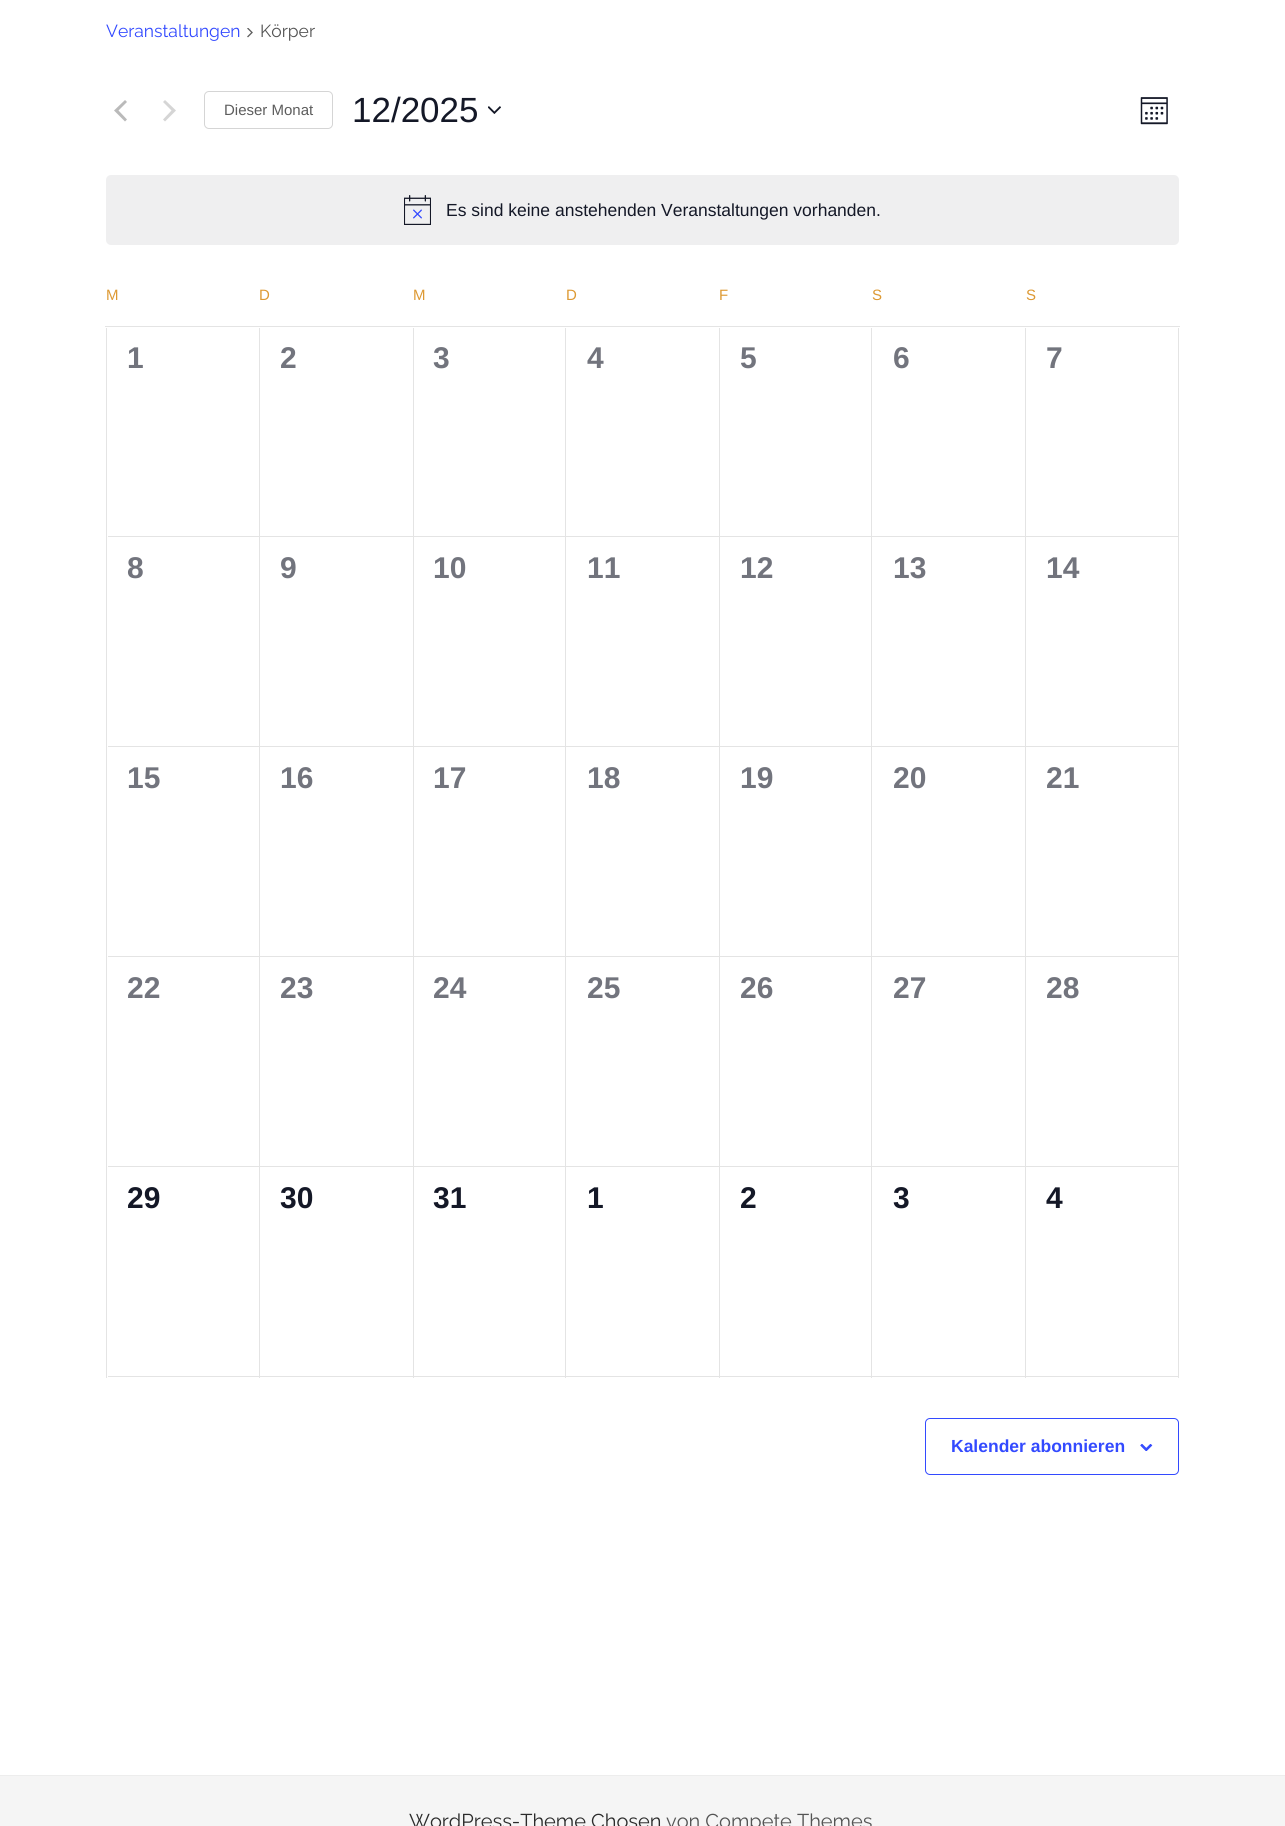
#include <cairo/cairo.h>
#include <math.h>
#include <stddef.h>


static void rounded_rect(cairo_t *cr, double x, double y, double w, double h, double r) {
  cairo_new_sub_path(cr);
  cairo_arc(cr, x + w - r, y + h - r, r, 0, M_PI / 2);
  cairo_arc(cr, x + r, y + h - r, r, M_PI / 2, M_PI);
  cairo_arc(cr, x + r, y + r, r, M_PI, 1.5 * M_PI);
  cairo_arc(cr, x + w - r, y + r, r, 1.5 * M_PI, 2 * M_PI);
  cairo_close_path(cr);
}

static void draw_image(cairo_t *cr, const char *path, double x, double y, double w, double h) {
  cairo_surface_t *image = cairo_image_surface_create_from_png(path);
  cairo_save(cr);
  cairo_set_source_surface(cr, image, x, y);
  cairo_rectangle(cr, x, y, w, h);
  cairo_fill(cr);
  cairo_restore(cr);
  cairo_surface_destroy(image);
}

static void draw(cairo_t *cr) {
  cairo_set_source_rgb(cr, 1, 1, 1);
  cairo_paint(cr);
  draw_image(cr, "images/1.png", 247, 28, 6, 10);
  cairo_set_source_rgb(cr, 186 / 255.0, 186 / 255.0, 186 / 255.0);
  cairo_new_path(cr);
  cairo_move_to(cr, 127, 119.5);
  cairo_line_to(cr, 125, 121.5);
  cairo_line_to(cr, 114, 110.5);
  cairo_line_to(cr, 125, 100);
  cairo_line_to(cr, 127, 102);
  cairo_line_to(cr, 118.5, 110.5);
  cairo_close_path(cr);
  cairo_fill(cr);
  cairo_set_source_rgb(cr, 213 / 255.0, 213 / 255.0, 213 / 255.0);
  cairo_new_path(cr);
  cairo_move_to(cr, 163, 102);
  cairo_line_to(cr, 165, 100);
  cairo_line_to(cr, 176, 110.5);
  cairo_line_to(cr, 165, 121.5);
  cairo_line_to(cr, 163, 119.5);
  cairo_line_to(cr, 171.5, 110.5);
  cairo_close_path(cr);
  cairo_fill(cr);
  rounded_rect(cr, 204.5, 91.5, 128, 37, 4.5);
  cairo_set_line_width(cr, 1);
  cairo_stroke(cr);
  draw_image(cr, "images/2.png", 488, 106, 13, 8);
  draw_image(cr, "images/3.png", 1140, 97, 28, 28);
  cairo_set_source_rgb(cr, 239 / 255.0, 239 / 255.0, 240 / 255.0);
  rounded_rect(cr, 106, 175, 1073, 70, 5);
  cairo_fill(cr);
  draw_image(cr, "images/4.png", 404, 195, 27, 30);
  cairo_set_source_rgb(cr, 228 / 255.0, 228 / 255.0, 228 / 255.0);
  cairo_rectangle(cr, 105, 326, 1075, 1);
  cairo_fill(cr);
  cairo_rectangle(cr, 106, 328, 1, 1050);
  cairo_fill(cr);
  cairo_rectangle(cr, 259, 328, 1, 1050);
  cairo_fill(cr);
  cairo_rectangle(cr, 108, 536, 152, 1);
  cairo_fill(cr);
  cairo_rectangle(cr, 413, 328, 1, 1050);
  cairo_fill(cr);
  cairo_rectangle(cr, 260, 536, 154, 1);
  cairo_fill(cr);
  cairo_rectangle(cr, 565, 328, 1, 1050);
  cairo_fill(cr);
  cairo_rectangle(cr, 414, 536, 152, 1);
  cairo_fill(cr);
  cairo_rectangle(cr, 719, 328, 1, 1050);
  cairo_fill(cr);
  cairo_rectangle(cr, 566, 536, 154, 1);
  cairo_fill(cr);
  cairo_rectangle(cr, 871, 328, 1, 1050);
  cairo_fill(cr);
  cairo_rectangle(cr, 720, 536, 153, 1);
  cairo_fill(cr);
  cairo_rectangle(cr, 1025, 328, 1, 1050);
  cairo_fill(cr);
  cairo_rectangle(cr, 873, 536, 153, 1);
  cairo_fill(cr);
  cairo_rectangle(cr, 1178, 328, 1, 1050);
  cairo_fill(cr);
  cairo_rectangle(cr, 1026, 536, 153, 1);
  cairo_fill(cr);
  cairo_rectangle(cr, 108, 746, 1071, 1);
  cairo_fill(cr);
  cairo_rectangle(cr, 108, 956, 1071, 1);
  cairo_fill(cr);
  cairo_rectangle(cr, 108, 1166, 1071, 1);
  cairo_fill(cr);
  cairo_rectangle(cr, 108, 1376, 1071, 1);
  cairo_fill(cr);
  rounded_rect(cr, 925.5, 1418.5, 253, 56, 4.5);
  cairo_set_source_rgb(cr, 51 / 255.0, 74 / 255.0, 1);
  cairo_stroke(cr);
  draw_image(cr, "images/5.png", 1140, 1444, 13, 7);
  cairo_set_source_rgb(cr, 245 / 255.0, 245 / 255.0, 245 / 255.0);
  cairo_rectangle(cr, 0, 1776, 1285, 50);
  cairo_fill(cr);
  cairo_set_source_rgb(cr, 237 / 255.0, 237 / 255.0, 237 / 255.0);
  cairo_rectangle(cr, 0, 1775, 1285, 1);
  cairo_fill(cr);
  cairo_select_font_face(cr, "Raleway", CAIRO_FONT_SLANT_NORMAL, CAIRO_FONT_WEIGHT_NORMAL);
  cairo_set_font_size(cr, 17.5);
  cairo_set_source_rgb(cr, 51 / 255.0, 74 / 255.0, 1);
  cairo_move_to(cr, 106, 37);
  cairo_show_text(cr, "Veranstaltungen");
  cairo_set_source_rgb(cr, 84 / 255.0, 84 / 255.0, 84 / 255.0);
  cairo_move_to(cr, 260, 37);
  cairo_show_text(cr, "Körper");
  cairo_select_font_face(cr, "Liberation Sans", CAIRO_FONT_SLANT_NORMAL, CAIRO_FONT_WEIGHT_NORMAL);
  cairo_set_font_size(cr, 15);
  cairo_set_source_rgb(cr, 93 / 255.0, 93 / 255.0, 93 / 255.0);
  cairo_move_to(cr, 224, 115);
  cairo_show_text(cr, "Dieser Monat");
  cairo_set_font_size(cr, 35);
  cairo_set_source_rgb(cr, 20 / 255.0, 24 / 255.0, 39 / 255.0);
  cairo_move_to(cr, 352, 122);
  cairo_show_text(cr, "12/2025");
  cairo_set_font_size(cr, 17.5);
  cairo_move_to(cr, 446, 216);
  cairo_show_text(cr, "Es sind keine anstehenden Veranstaltungen vorhanden.");
  cairo_set_font_size(cr, 15);
  cairo_set_source_rgb(cr, 221 / 255.0, 153 / 255.0, 51 / 255.0);
  cairo_move_to(cr, 106, 300);
  cairo_show_text(cr, "M");
  cairo_move_to(cr, 259, 300);
  cairo_show_text(cr, "D");
  cairo_move_to(cr, 413, 300);
  cairo_show_text(cr, "M");
  cairo_move_to(cr, 566, 300);
  cairo_show_text(cr, "D");
  cairo_move_to(cr, 719, 300);
  cairo_show_text(cr, "F");
  cairo_move_to(cr, 872, 300);
  cairo_show_text(cr, "S");
  cairo_move_to(cr, 1026, 300);
  cairo_show_text(cr, "S");
  cairo_select_font_face(cr, "Liberation Sans", CAIRO_FONT_SLANT_NORMAL, CAIRO_FONT_WEIGHT_BOLD);
  cairo_set_font_size(cr, 30);
  cairo_set_source_rgb(cr, 114 / 255.0, 116 / 255.0, 125 / 255.0);
  cairo_move_to(cr, 127, 368);
  cairo_show_text(cr, "1");
  cairo_move_to(cr, 280, 368);
  cairo_show_text(cr, "2");
  cairo_move_to(cr, 433, 368);
  cairo_show_text(cr, "3");
  cairo_move_to(cr, 587, 368);
  cairo_show_text(cr, "4");
  cairo_move_to(cr, 740, 368);
  cairo_show_text(cr, "5");
  cairo_move_to(cr, 893, 368);
  cairo_show_text(cr, "6");
  cairo_move_to(cr, 1046, 368);
  cairo_show_text(cr, "7");
  cairo_move_to(cr, 127, 578);
  cairo_show_text(cr, "8");
  cairo_move_to(cr, 280, 578);
  cairo_show_text(cr, "9");
  cairo_move_to(cr, 433, 578);
  cairo_show_text(cr, "10");
  cairo_move_to(cr, 587, 578);
  cairo_show_text(cr, "11");
  cairo_move_to(cr, 740, 578);
  cairo_show_text(cr, "12");
  cairo_move_to(cr, 893, 578);
  cairo_show_text(cr, "13");
  cairo_move_to(cr, 1046, 578);
  cairo_show_text(cr, "14");
  cairo_move_to(cr, 127, 788);
  cairo_show_text(cr, "15");
  cairo_move_to(cr, 280, 788);
  cairo_show_text(cr, "16");
  cairo_move_to(cr, 433, 788);
  cairo_show_text(cr, "17");
  cairo_move_to(cr, 587, 788);
  cairo_show_text(cr, "18");
  cairo_move_to(cr, 740, 788);
  cairo_show_text(cr, "19");
  cairo_move_to(cr, 893, 788);
  cairo_show_text(cr, "20");
  cairo_move_to(cr, 1046, 788);
  cairo_show_text(cr, "21");
  cairo_move_to(cr, 127, 998);
  cairo_show_text(cr, "22");
  cairo_move_to(cr, 280, 998);
  cairo_show_text(cr, "23");
  cairo_move_to(cr, 433, 998);
  cairo_show_text(cr, "24");
  cairo_move_to(cr, 587, 998);
  cairo_show_text(cr, "25");
  cairo_move_to(cr, 740, 998);
  cairo_show_text(cr, "26");
  cairo_move_to(cr, 893, 998);
  cairo_show_text(cr, "27");
  cairo_move_to(cr, 1046, 998);
  cairo_show_text(cr, "28");
  cairo_set_source_rgb(cr, 20 / 255.0, 24 / 255.0, 39 / 255.0);
  cairo_move_to(cr, 127, 1208);
  cairo_show_text(cr, "29");
  cairo_move_to(cr, 280, 1208);
  cairo_show_text(cr, "30");
  cairo_move_to(cr, 433, 1208);
  cairo_show_text(cr, "31");
  cairo_move_to(cr, 587, 1208);
  cairo_show_text(cr, "1");
  cairo_move_to(cr, 740, 1208);
  cairo_show_text(cr, "2");
  cairo_move_to(cr, 893, 1208);
  cairo_show_text(cr, "3");
  cairo_move_to(cr, 1046, 1208);
  cairo_show_text(cr, "4");
  cairo_set_font_size(cr, 17.5);
  cairo_set_source_rgb(cr, 51 / 255.0, 74 / 255.0, 1);
  cairo_move_to(cr, 951, 1452);
  cairo_show_text(cr, "Kalender abonnieren");
  cairo_select_font_face(cr, "Raleway", CAIRO_FONT_SLANT_NORMAL, CAIRO_FONT_WEIGHT_NORMAL);
  cairo_set_font_size(cr, 20);
  cairo_set_source_rgb(cr, 43 / 255.0, 43 / 255.0, 43 / 255.0);
  cairo_move_to(cr, 409, 1828);
  cairo_show_text(cr, "WordPress-Theme Chosen");
  cairo_set_source_rgb(cr, 84 / 255.0, 84 / 255.0, 84 / 255.0);
  cairo_move_to(cr, 666, 1828);
  cairo_show_text(cr, "von Compete Themes");
}

int main(void) {
  cairo_surface_t *surface = cairo_image_surface_create(CAIRO_FORMAT_RGB24, 1285, 1826);
  cairo_t *cr = cairo_create(surface);
  cairo_font_options_t *options = cairo_font_options_create();
  cairo_font_options_set_hint_metrics(options, CAIRO_HINT_METRICS_OFF);
  cairo_font_options_set_hint_style(options, CAIRO_HINT_STYLE_NONE);
  cairo_set_font_options(cr, options);
  cairo_set_miter_limit(cr, 4);
  draw(cr);
  cairo_surface_write_to_png(surface, "out.png");
  cairo_font_options_destroy(options);
  cairo_destroy(cr);
  cairo_surface_destroy(surface);
  return 0;
}
